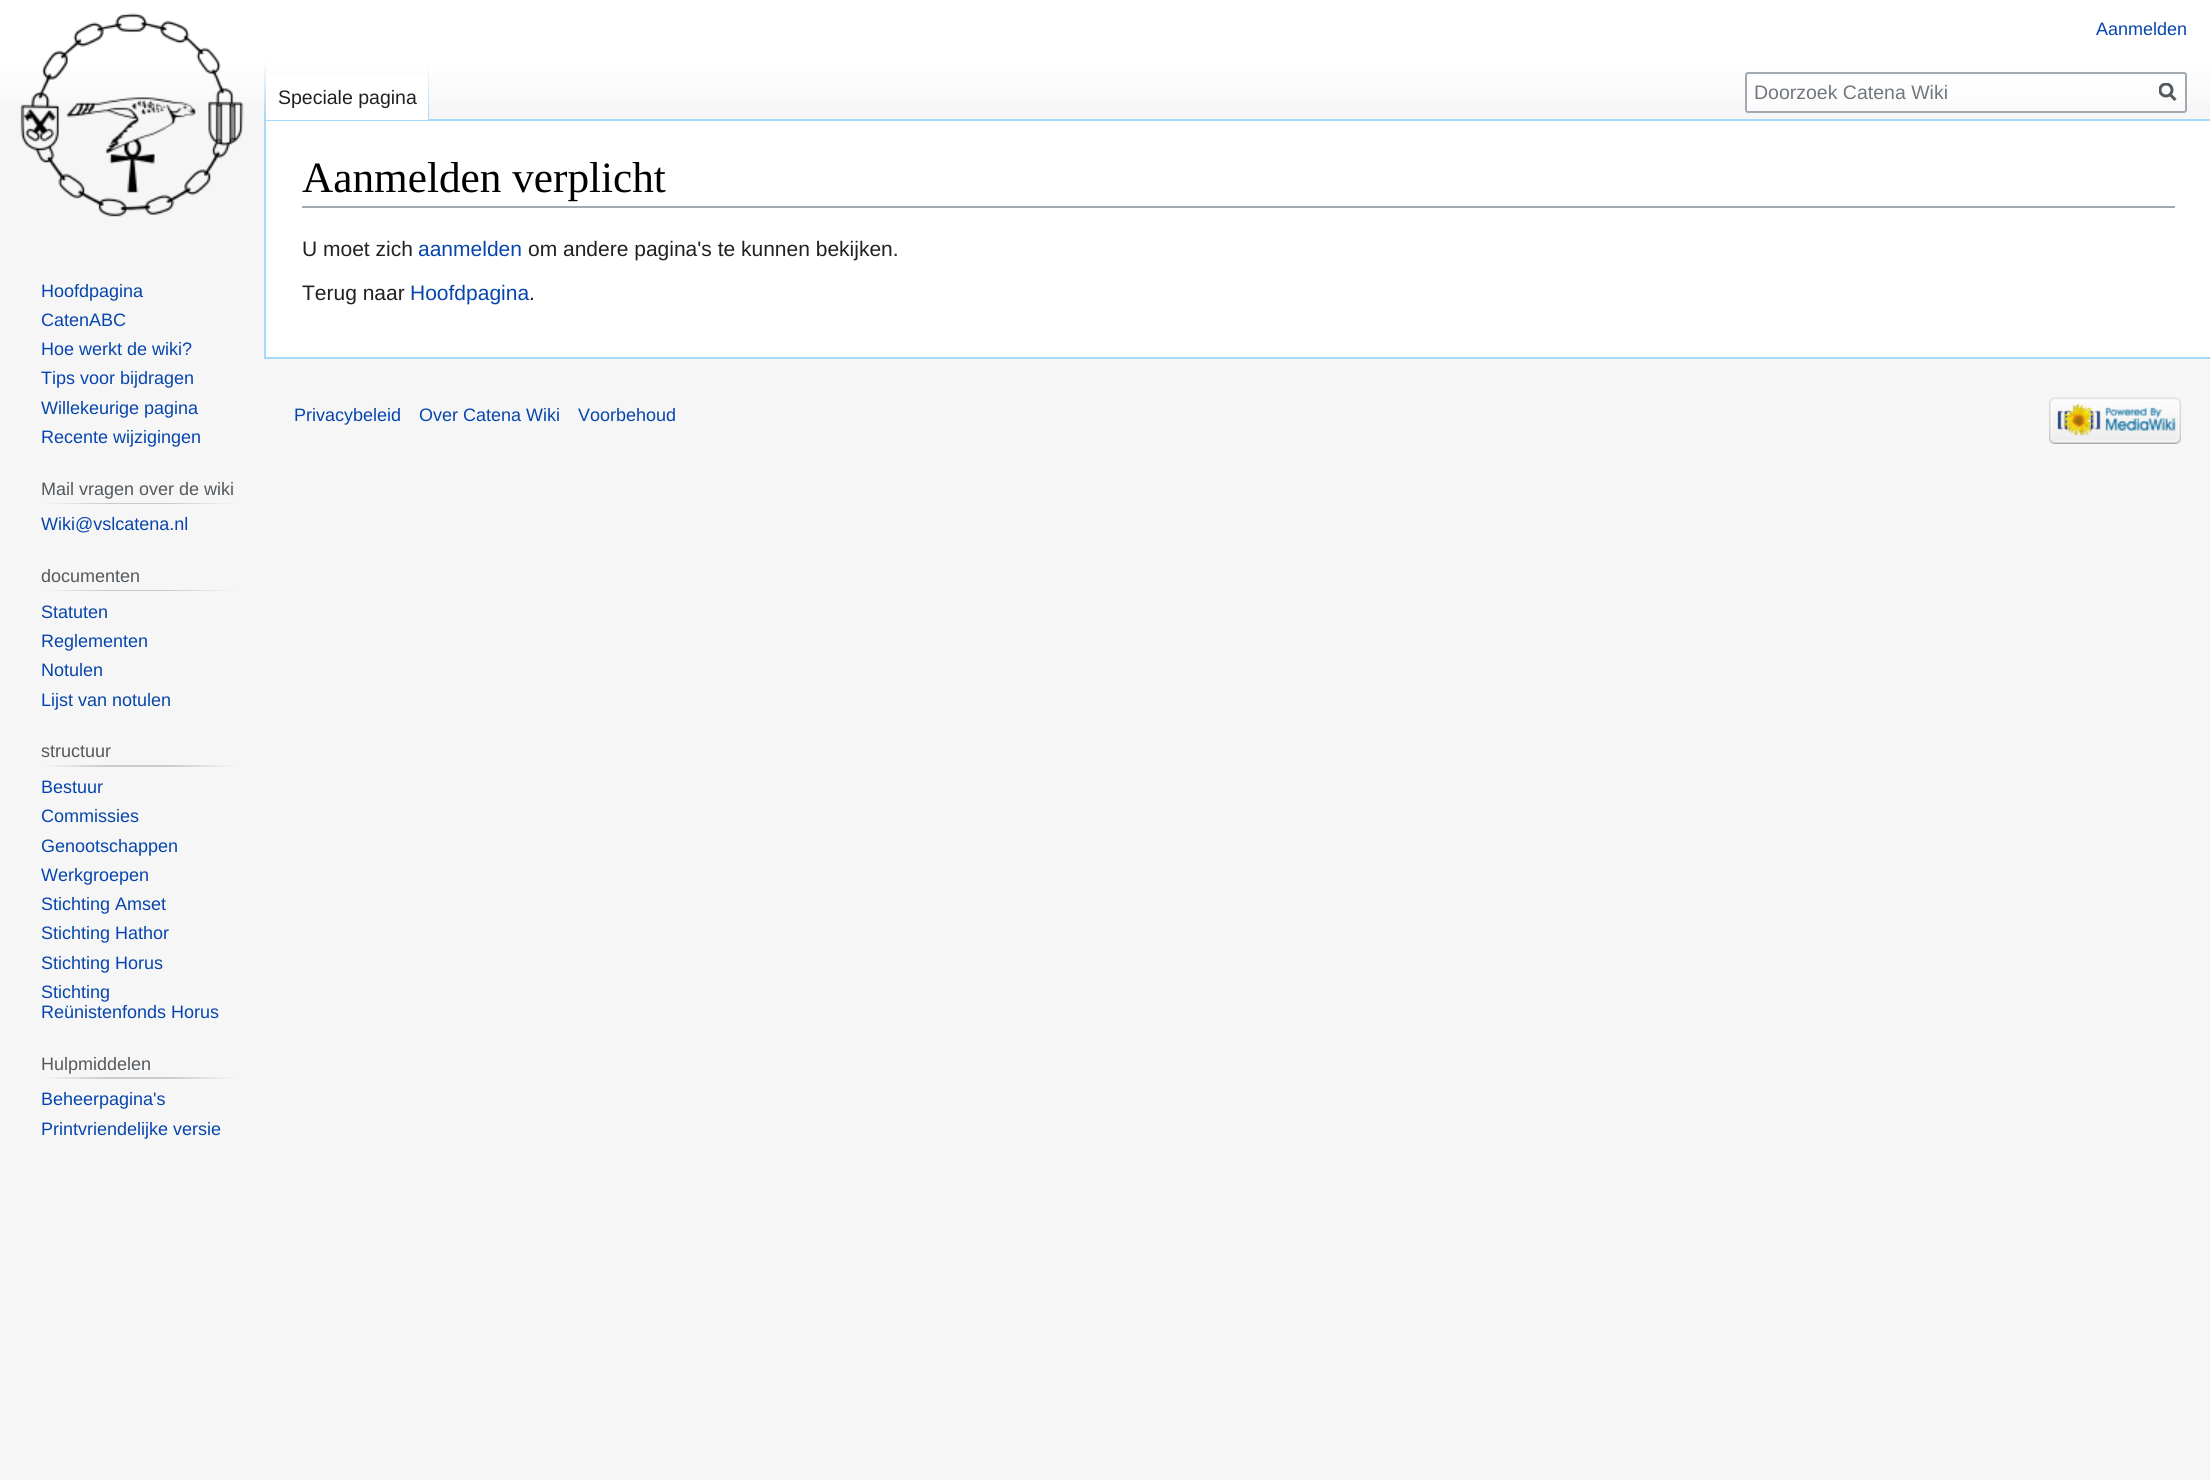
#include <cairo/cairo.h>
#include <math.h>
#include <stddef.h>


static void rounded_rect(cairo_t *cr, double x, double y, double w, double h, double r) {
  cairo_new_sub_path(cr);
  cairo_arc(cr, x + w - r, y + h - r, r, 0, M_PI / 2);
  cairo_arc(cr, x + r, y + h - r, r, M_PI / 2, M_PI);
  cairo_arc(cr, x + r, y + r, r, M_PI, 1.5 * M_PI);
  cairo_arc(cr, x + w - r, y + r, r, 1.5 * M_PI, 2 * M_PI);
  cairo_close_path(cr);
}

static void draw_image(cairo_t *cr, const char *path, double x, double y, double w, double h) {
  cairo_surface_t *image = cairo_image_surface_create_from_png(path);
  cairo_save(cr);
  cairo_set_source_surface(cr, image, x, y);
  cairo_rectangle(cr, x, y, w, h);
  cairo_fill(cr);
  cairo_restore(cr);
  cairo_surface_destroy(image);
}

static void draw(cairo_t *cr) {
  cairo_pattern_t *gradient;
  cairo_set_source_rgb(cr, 246 / 255.0, 246 / 255.0, 246 / 255.0);
  cairo_paint(cr);
  gradient = cairo_pattern_create_linear(1106, 0, 1106, 120);
  cairo_pattern_add_color_stop_rgba(gradient, 0.5, 1, 1, 1, 1);
  cairo_pattern_add_color_stop_rgba(gradient, 1, 246 / 255.0, 246 / 255.0, 246 / 255.0, 1);
  cairo_set_source(cr, gradient);
  cairo_pattern_destroy(gradient);
  cairo_rectangle(cr, 0, 0, 2210, 103);
  cairo_fill(cr);
  cairo_set_source_rgb(cr, 167 / 255.0, 215 / 255.0, 249 / 255.0);
  cairo_rectangle(cr, 264, 119, 1946, 2);
  cairo_fill(cr);
  cairo_rectangle(cr, 264, 357, 1946, 2);
  cairo_fill(cr);
  cairo_rectangle(cr, 264, 119, 2, 240);
  cairo_fill(cr);
  gradient = cairo_pattern_create_linear(265, 60, 265, 120);
  cairo_pattern_add_color_stop_rgba(gradient, 0, 167 / 255.0, 215 / 255.0, 249 / 255.0, 0);
  cairo_pattern_add_color_stop_rgba(gradient, 1, 167 / 255.0, 215 / 255.0, 249 / 255.0, 1);
  cairo_set_source(cr, gradient);
  cairo_pattern_destroy(gradient);
  cairo_rectangle(cr, 264, 60, 2, 60);
  cairo_fill(cr);
  cairo_set_source_rgb(cr, 1, 1, 1);
  cairo_rectangle(cr, 266, 77, 162, 43);
  cairo_fill(cr);
  gradient = cairo_pattern_create_linear(428, 60, 428, 120);
  cairo_pattern_add_color_stop_rgba(gradient, 0, 1, 1, 1, 1);
  cairo_pattern_add_color_stop_rgba(gradient, 1, 167 / 255.0, 215 / 255.0, 249 / 255.0, 1);
  cairo_set_source(cr, gradient);
  cairo_pattern_destroy(gradient);
  cairo_rectangle(cr, 428, 60, 1, 60);
  cairo_fill(cr);
  cairo_set_source_rgba(cr, 1, 1, 1, 0.5);
  rounded_rect(cr, 1746, 73, 440, 39, 2);
  cairo_fill_preserve(cr);
  cairo_set_source_rgb(cr, 162 / 255.0, 169 / 255.0, 177 / 255.0);
  cairo_stroke(cr);
  cairo_new_path(cr);
  cairo_move_to(cr, 2175.5, 100);
  cairo_line_to(cr, 2169.5, 94);
  cairo_set_source_rgb(cr, 84 / 255.0, 89 / 255.0, 93 / 255.0);
  cairo_set_line_width(cr, 3);
  cairo_stroke(cr);
  cairo_save(cr);
  cairo_rectangle(cr, 2159, 83, 18, 19);
  cairo_clip(cr);
  cairo_arc(cr, 2166, 90, 6, 0, 2 * M_PI);
  cairo_stroke(cr);
  cairo_restore(cr);
  draw_image(cr, "images/1.png", 20, 13, 224, 204);
  gradient = cairo_pattern_create_linear(41, 503, 237, 503);
  cairo_pattern_add_color_stop_rgba(gradient, 0, 246 / 255.0, 246 / 255.0, 246 / 255.0, 1);
  cairo_pattern_add_color_stop_rgba(gradient, 0.33, 200 / 255.0, 204 / 255.0, 209 / 255.0, 1);
  cairo_pattern_add_color_stop_rgba(gradient, 0.66, 200 / 255.0, 204 / 255.0, 209 / 255.0, 1);
  cairo_pattern_add_color_stop_rgba(gradient, 1, 246 / 255.0, 246 / 255.0, 246 / 255.0, 1);
  cairo_set_source(cr, gradient);
  cairo_pattern_destroy(gradient);
  cairo_rectangle(cr, 41, 503, 196, 1);
  cairo_fill(cr);
  gradient = cairo_pattern_create_linear(41, 590, 237, 590);
  cairo_pattern_add_color_stop_rgba(gradient, 0, 246 / 255.0, 246 / 255.0, 246 / 255.0, 1);
  cairo_pattern_add_color_stop_rgba(gradient, 0.33, 200 / 255.0, 204 / 255.0, 209 / 255.0, 1);
  cairo_pattern_add_color_stop_rgba(gradient, 0.66, 200 / 255.0, 204 / 255.0, 209 / 255.0, 1);
  cairo_pattern_add_color_stop_rgba(gradient, 1, 246 / 255.0, 246 / 255.0, 246 / 255.0, 1);
  cairo_set_source(cr, gradient);
  cairo_pattern_destroy(gradient);
  cairo_rectangle(cr, 41, 590, 196, 1);
  cairo_fill(cr);
  gradient = cairo_pattern_create_linear(41, 766, 237, 766);
  cairo_pattern_add_color_stop_rgba(gradient, 0, 246 / 255.0, 246 / 255.0, 246 / 255.0, 1);
  cairo_pattern_add_color_stop_rgba(gradient, 0.33, 200 / 255.0, 204 / 255.0, 209 / 255.0, 1);
  cairo_pattern_add_color_stop_rgba(gradient, 0.66, 200 / 255.0, 204 / 255.0, 209 / 255.0, 1);
  cairo_pattern_add_color_stop_rgba(gradient, 1, 246 / 255.0, 246 / 255.0, 246 / 255.0, 1);
  cairo_set_source(cr, gradient);
  cairo_pattern_destroy(gradient);
  cairo_rectangle(cr, 41, 765, 196, 2);
  cairo_fill(cr);
  gradient = cairo_pattern_create_linear(41, 1078, 237, 1078);
  cairo_pattern_add_color_stop_rgba(gradient, 0, 246 / 255.0, 246 / 255.0, 246 / 255.0, 1);
  cairo_pattern_add_color_stop_rgba(gradient, 0.33, 200 / 255.0, 204 / 255.0, 209 / 255.0, 1);
  cairo_pattern_add_color_stop_rgba(gradient, 0.66, 200 / 255.0, 204 / 255.0, 209 / 255.0, 1);
  cairo_pattern_add_color_stop_rgba(gradient, 1, 246 / 255.0, 246 / 255.0, 246 / 255.0, 1);
  cairo_set_source(cr, gradient);
  cairo_pattern_destroy(gradient);
  cairo_rectangle(cr, 41, 1077, 196, 2);
  cairo_fill(cr);
  cairo_set_source_rgb(cr, 1, 1, 1);
  cairo_rectangle(cr, 266, 121, 1944, 236);
  cairo_fill(cr);
  cairo_set_source_rgb(cr, 162 / 255.0, 169 / 255.0, 177 / 255.0);
  cairo_rectangle(cr, 302, 206, 1873, 2);
  cairo_fill(cr);
  draw_image(cr, "images/2.png", 2049, 397, 132, 47);
  cairo_select_font_face(cr, "Liberation Sans", CAIRO_FONT_SLANT_NORMAL, CAIRO_FONT_WEIGHT_NORMAL);
  cairo_set_font_size(cr, 18);
  cairo_set_source_rgb(cr, 6 / 255.0, 69 / 255.0, 173 / 255.0);
  cairo_move_to(cr, 2096, 35);
  cairo_show_text(cr, "Aanmelden");
  cairo_set_font_size(cr, 19.5);
  cairo_set_source_rgb(cr, 32 / 255.0, 33 / 255.0, 34 / 255.0);
  cairo_move_to(cr, 278, 104);
  cairo_show_text(cr, "Speciale pagina");
  cairo_set_source_rgb(cr, 114 / 255.0, 119 / 255.0, 125 / 255.0);
  cairo_move_to(cr, 1754, 99);
  cairo_show_text(cr, "Doorzoek Catena Wiki");
  cairo_set_font_size(cr, 18);
  cairo_set_source_rgb(cr, 6 / 255.0, 69 / 255.0, 173 / 255.0);
  cairo_move_to(cr, 41, 297);
  cairo_show_text(cr, "Hoofdpagina");
  cairo_move_to(cr, 41, 326);
  cairo_show_text(cr, "CatenABC");
  cairo_move_to(cr, 41, 355);
  cairo_show_text(cr, "Hoe werkt de wiki?");
  cairo_move_to(cr, 41, 384);
  cairo_show_text(cr, "Tips voor bijdragen");
  cairo_move_to(cr, 41, 414);
  cairo_show_text(cr, "Willekeurige pagina");
  cairo_move_to(cr, 41, 443);
  cairo_show_text(cr, "Recente wijzigingen");
  cairo_set_source_rgb(cr, 84 / 255.0, 89 / 255.0, 93 / 255.0);
  cairo_move_to(cr, 41, 495);
  cairo_show_text(cr, "Mail vragen over de wiki");
  cairo_set_source_rgb(cr, 6 / 255.0, 69 / 255.0, 173 / 255.0);
  cairo_move_to(cr, 41, 530);
  cairo_show_text(cr, "Wiki@vslcatena.nl");
  cairo_set_source_rgb(cr, 84 / 255.0, 89 / 255.0, 93 / 255.0);
  cairo_move_to(cr, 41, 582);
  cairo_show_text(cr, "documenten");
  cairo_set_source_rgb(cr, 6 / 255.0, 69 / 255.0, 173 / 255.0);
  cairo_move_to(cr, 41, 618);
  cairo_show_text(cr, "Statuten");
  cairo_move_to(cr, 41, 647);
  cairo_show_text(cr, "Reglementen");
  cairo_move_to(cr, 41, 676);
  cairo_show_text(cr, "Notulen");
  cairo_move_to(cr, 41, 706);
  cairo_show_text(cr, "Lijst van notulen");
  cairo_set_source_rgb(cr, 84 / 255.0, 89 / 255.0, 93 / 255.0);
  cairo_move_to(cr, 41, 757);
  cairo_show_text(cr, "structuur");
  cairo_set_source_rgb(cr, 6 / 255.0, 69 / 255.0, 173 / 255.0);
  cairo_move_to(cr, 41, 793);
  cairo_show_text(cr, "Bestuur");
  cairo_move_to(cr, 41, 822);
  cairo_show_text(cr, "Commissies");
  cairo_move_to(cr, 41, 852);
  cairo_show_text(cr, "Genootschappen");
  cairo_move_to(cr, 41, 881);
  cairo_show_text(cr, "Werkgroepen");
  cairo_move_to(cr, 41, 910);
  cairo_show_text(cr, "Stichting Amset");
  cairo_move_to(cr, 41, 939);
  cairo_show_text(cr, "Stichting Hathor");
  cairo_move_to(cr, 41, 969);
  cairo_show_text(cr, "Stichting Horus");
  cairo_move_to(cr, 41, 998);
  cairo_show_text(cr, "Stichting");
  cairo_move_to(cr, 41, 1018);
  cairo_show_text(cr, "Reünistenfonds Horus");
  cairo_set_source_rgb(cr, 84 / 255.0, 89 / 255.0, 93 / 255.0);
  cairo_move_to(cr, 41, 1070);
  cairo_show_text(cr, "Hulpmiddelen");
  cairo_set_source_rgb(cr, 6 / 255.0, 69 / 255.0, 173 / 255.0);
  cairo_move_to(cr, 41, 1105);
  cairo_show_text(cr, "Beheerpagina's");
  cairo_move_to(cr, 41, 1135);
  cairo_show_text(cr, "Printvriendelijke versie");
  cairo_select_font_face(cr, "Liberation Serif", CAIRO_FONT_SLANT_NORMAL, CAIRO_FONT_WEIGHT_NORMAL);
  cairo_set_font_size(cr, 43.25);
  cairo_set_source_rgb(cr, 0, 0, 0);
  cairo_move_to(cr, 302, 192);
  cairo_show_text(cr, "Aanmelden verplicht");
  cairo_select_font_face(cr, "Liberation Sans", CAIRO_FONT_SLANT_NORMAL, CAIRO_FONT_WEIGHT_NORMAL);
  cairo_set_font_size(cr, 21);
  cairo_set_source_rgb(cr, 32 / 255.0, 33 / 255.0, 34 / 255.0);
  cairo_move_to(cr, 302, 256);
  cairo_show_text(cr, "U moet zich");
  cairo_set_source_rgb(cr, 6 / 255.0, 69 / 255.0, 173 / 255.0);
  cairo_move_to(cr, 418, 256);
  cairo_show_text(cr, "aanmelden");
  cairo_set_source_rgb(cr, 32 / 255.0, 33 / 255.0, 34 / 255.0);
  cairo_move_to(cr, 528, 256);
  cairo_show_text(cr, "om andere pagina's te kunnen bekijken.");
  cairo_move_to(cr, 302, 300);
  cairo_show_text(cr, "Terug naar");
  cairo_set_source_rgb(cr, 6 / 255.0, 69 / 255.0, 173 / 255.0);
  cairo_move_to(cr, 410, 300);
  cairo_show_text(cr, "Hoofdpagina");
  cairo_set_source_rgb(cr, 32 / 255.0, 33 / 255.0, 34 / 255.0);
  cairo_move_to(cr, 529, 300);
  cairo_show_text(cr, ".");
  cairo_set_font_size(cr, 18);
  cairo_set_source_rgb(cr, 6 / 255.0, 69 / 255.0, 173 / 255.0);
  cairo_move_to(cr, 294, 421);
  cairo_show_text(cr, "Privacybeleid");
  cairo_move_to(cr, 419, 421);
  cairo_show_text(cr, "Over Catena Wiki");
  cairo_move_to(cr, 578, 421);
  cairo_show_text(cr, "Voorbehoud");
}

int main(void) {
  cairo_surface_t *surface = cairo_image_surface_create(CAIRO_FORMAT_RGB24, 2210, 1480);
  cairo_t *cr = cairo_create(surface);
  cairo_font_options_t *options = cairo_font_options_create();
  cairo_font_options_set_hint_metrics(options, CAIRO_HINT_METRICS_OFF);
  cairo_font_options_set_hint_style(options, CAIRO_HINT_STYLE_NONE);
  cairo_set_font_options(cr, options);
  cairo_set_miter_limit(cr, 4);
  draw(cr);
  cairo_surface_write_to_png(surface, "out.png");
  cairo_font_options_destroy(options);
  cairo_destroy(cr);
  cairo_surface_destroy(surface);
  return 0;
}
